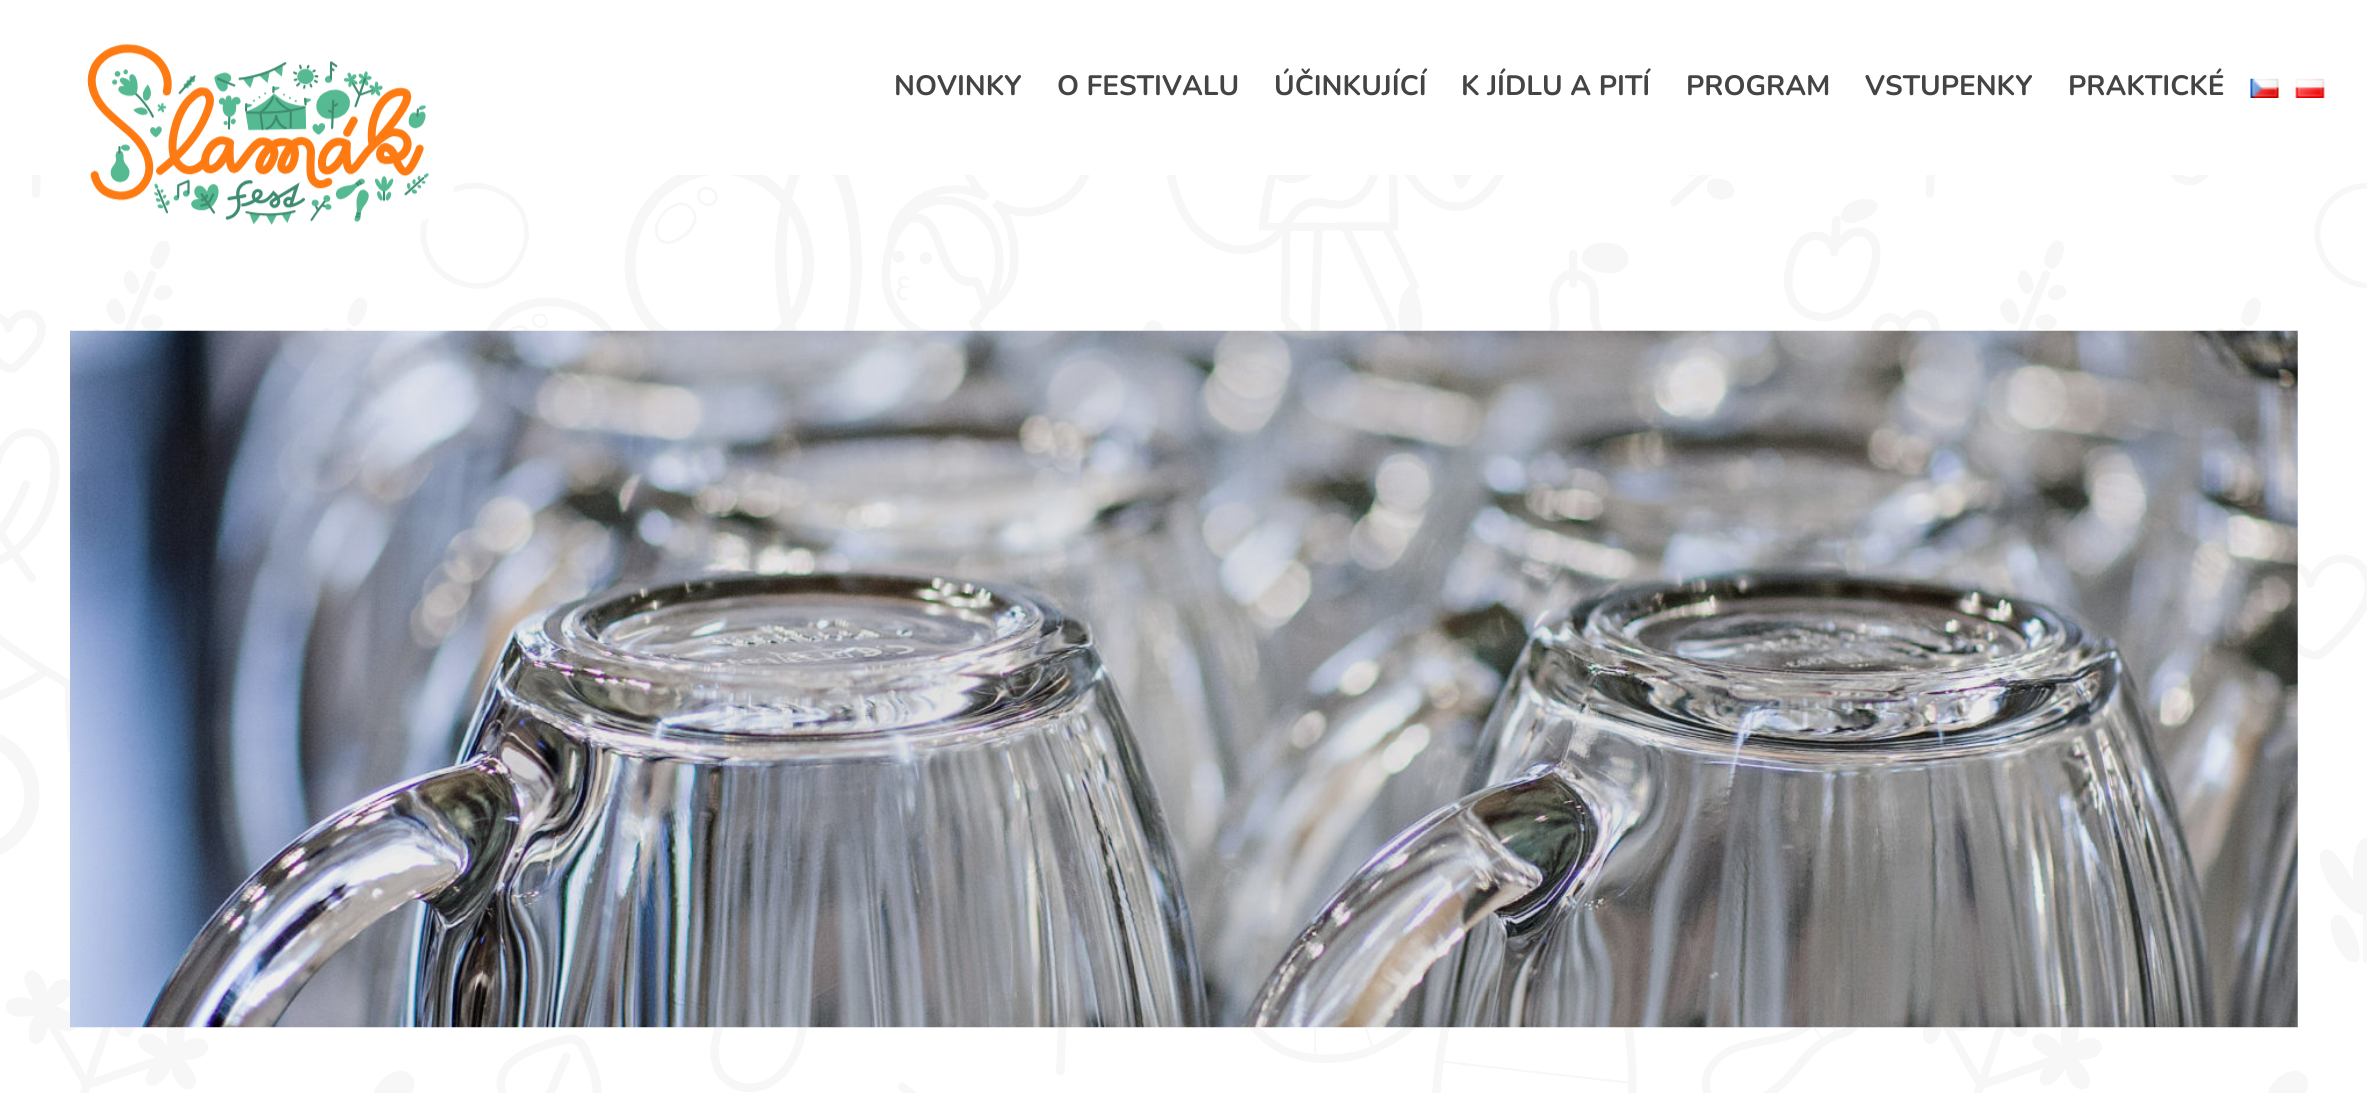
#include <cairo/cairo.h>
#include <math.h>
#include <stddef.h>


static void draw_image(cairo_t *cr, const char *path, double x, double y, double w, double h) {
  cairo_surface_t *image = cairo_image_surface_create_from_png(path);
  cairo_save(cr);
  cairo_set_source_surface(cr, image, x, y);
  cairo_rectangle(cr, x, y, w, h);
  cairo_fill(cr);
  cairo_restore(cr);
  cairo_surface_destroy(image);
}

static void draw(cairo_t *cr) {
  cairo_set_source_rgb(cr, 1, 1, 1);
  cairo_paint(cr);
  draw_image(cr, "images/4.png", 0, 175, 2367, 918);
  draw_image(cr, "images/1.png", 87, 44, 367, 197);
  draw_image(cr, "images/2.png", 2250, 78, 29, 20);
  draw_image(cr, "images/3.png", 2295, 78, 30, 20);
  draw_image(cr, "images/5.png", 70, 330, 2228, 698);
  cairo_select_font_face(cr, "Nunito", CAIRO_FONT_SLANT_NORMAL, CAIRO_FONT_WEIGHT_BOLD);
  cairo_set_font_size(cr, 28);
  cairo_set_source_rgb(cr, 68 / 255.0, 68 / 255.0, 68 / 255.0);
  cairo_move_to(cr, 894, 95);
  cairo_show_text(cr, "NOVINKY");
  cairo_move_to(cr, 1057, 95);
  cairo_show_text(cr, "O FESTIVALU");
  cairo_move_to(cr, 1274, 95);
  cairo_show_text(cr, "ÚČINKUJÍCÍ");
  cairo_move_to(cr, 1461, 95);
  cairo_show_text(cr, "K JÍDLU A PITÍ");
  cairo_move_to(cr, 1686, 95);
  cairo_show_text(cr, "PROGRAM");
  cairo_move_to(cr, 1865, 95);
  cairo_show_text(cr, "VSTUPENKY");
  cairo_move_to(cr, 2068, 95);
  cairo_show_text(cr, "PRAKTICKÉ");
}

int main(void) {
  cairo_surface_t *surface = cairo_image_surface_create(CAIRO_FORMAT_RGB24, 2367, 1093);
  cairo_t *cr = cairo_create(surface);
  cairo_font_options_t *options = cairo_font_options_create();
  cairo_font_options_set_hint_metrics(options, CAIRO_HINT_METRICS_OFF);
  cairo_font_options_set_hint_style(options, CAIRO_HINT_STYLE_NONE);
  cairo_set_font_options(cr, options);
  cairo_set_miter_limit(cr, 4);
  draw(cr);
  cairo_surface_write_to_png(surface, "out.png");
  cairo_font_options_destroy(options);
  cairo_destroy(cr);
  cairo_surface_destroy(surface);
  return 0;
}
